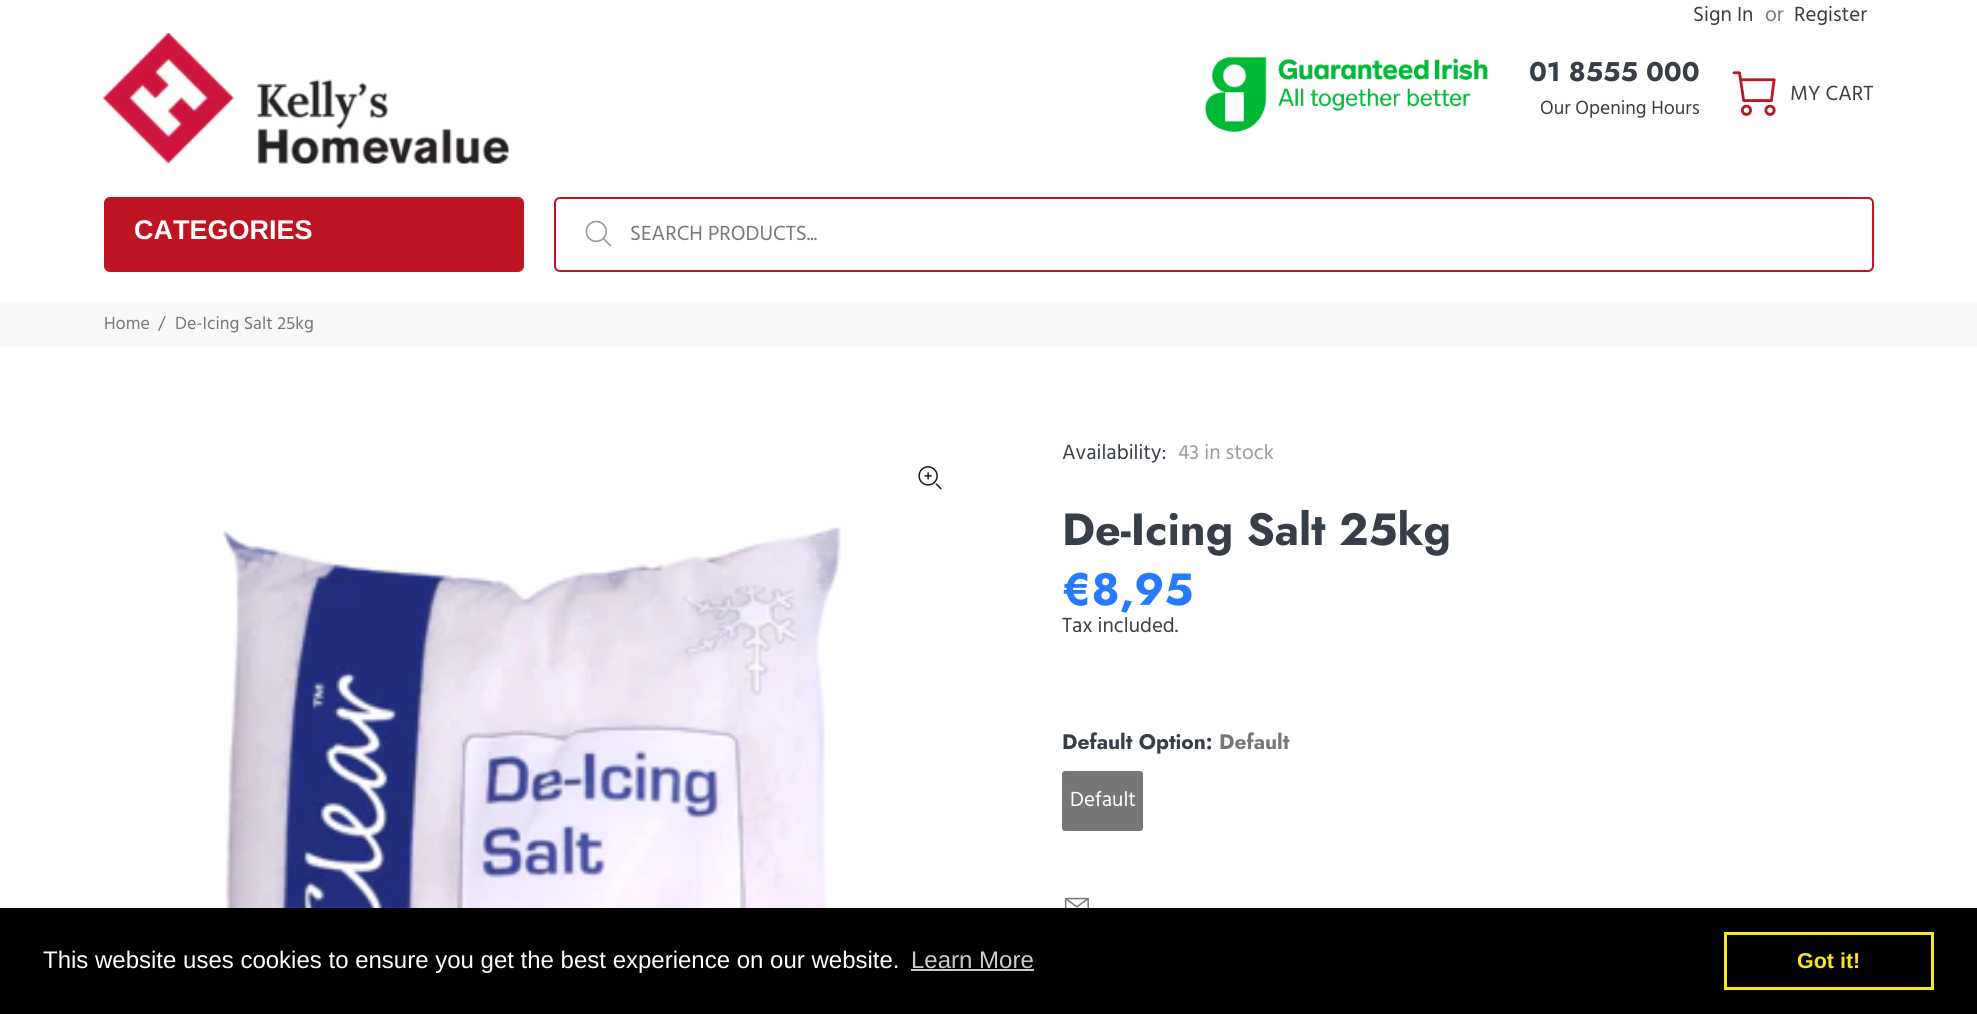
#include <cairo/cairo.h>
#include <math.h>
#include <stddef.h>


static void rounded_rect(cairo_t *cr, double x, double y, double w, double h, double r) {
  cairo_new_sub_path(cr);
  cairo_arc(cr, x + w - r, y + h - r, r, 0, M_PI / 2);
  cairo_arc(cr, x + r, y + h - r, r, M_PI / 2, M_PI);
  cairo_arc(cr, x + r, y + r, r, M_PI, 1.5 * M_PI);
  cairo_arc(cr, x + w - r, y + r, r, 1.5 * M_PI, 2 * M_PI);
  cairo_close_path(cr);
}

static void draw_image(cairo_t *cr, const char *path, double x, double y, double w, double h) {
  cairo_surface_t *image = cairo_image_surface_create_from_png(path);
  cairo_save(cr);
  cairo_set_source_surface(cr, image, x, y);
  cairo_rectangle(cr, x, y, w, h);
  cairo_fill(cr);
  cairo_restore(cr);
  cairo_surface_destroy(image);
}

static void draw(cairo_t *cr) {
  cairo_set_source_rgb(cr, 1, 1, 1);
  cairo_paint(cr);
  draw_image(cr, "images/1.png", 103, 33, 406, 131);
  draw_image(cr, "images/2.png", 1205, 57, 283, 75);
  draw_image(cr, "images/3.png", 1732, 71, 44, 45);
  cairo_set_source_rgb(cr, 190 / 255.0, 21 / 255.0, 34 / 255.0);
  rounded_rect(cr, 104, 197, 420, 75, 6);
  cairo_fill(cr);
  rounded_rect(cr, 555, 198, 1318, 73, 5);
  cairo_stroke(cr);
  draw_image(cr, "images/4.png", 585, 220, 27, 27);
  cairo_set_source_rgb(cr, 247 / 255.0, 248 / 255.0, 250 / 255.0);
  cairo_rectangle(cr, 0, 302, 1977, 45);
  cairo_fill(cr);
  draw_image(cr, "images/5.png", 918, 466, 24, 24);
  draw_image(cr, "images/6.png", 223, 526, 618, 382);
  cairo_set_source_rgb(cr, 119 / 255.0, 119 / 255.0, 119 / 255.0);
  rounded_rect(cr, 1062, 771, 81, 60, 3);
  cairo_fill(cr);
  draw_image(cr, "images/7.png", 1064, 897, 25, 11);
  cairo_set_source_rgb(cr, 0, 0, 0);
  cairo_rectangle(cr, 0, 908, 1977, 106);
  cairo_fill(cr);
  cairo_set_source_rgb(cr, 204 / 255.0, 204 / 255.0, 204 / 255.0);
  cairo_rectangle(cr, 911, 969, 123, 2);
  cairo_fill(cr);
  cairo_rectangle(cr, 1725.5, 933.5, 207, 55);
  cairo_set_source_rgb(cr, 248 / 255.0, 231 / 255.0, 28 / 255.0);
  cairo_set_line_width(cr, 3);
  cairo_stroke(cr);
  cairo_select_font_face(cr, "Hind", CAIRO_FONT_SLANT_NORMAL, CAIRO_FONT_WEIGHT_NORMAL);
  cairo_set_font_size(cr, 21);
  cairo_set_source_rgb(cr, 55 / 255.0, 62 / 255.0, 72 / 255.0);
  cairo_move_to(cr, 1693, 21);
  cairo_show_text(cr, "Sign In");
  cairo_set_source_rgb(cr, 119 / 255.0, 119 / 255.0, 119 / 255.0);
  cairo_move_to(cr, 1765, 21);
  cairo_show_text(cr, "or");
  cairo_set_source_rgb(cr, 55 / 255.0, 62 / 255.0, 72 / 255.0);
  cairo_move_to(cr, 1794, 21);
  cairo_show_text(cr, "Register");
  cairo_select_font_face(cr, "Jost", CAIRO_FONT_SLANT_NORMAL, CAIRO_FONT_WEIGHT_BOLD);
  cairo_set_font_size(cr, 27);
  cairo_move_to(cr, 1529, 81);
  cairo_show_text(cr, "01 8555 000");
  cairo_select_font_face(cr, "Hind", CAIRO_FONT_SLANT_NORMAL, CAIRO_FONT_WEIGHT_NORMAL);
  cairo_set_font_size(cr, 19.5);
  cairo_move_to(cr, 1540, 114);
  cairo_show_text(cr, "Our Opening Hours");
  cairo_set_font_size(cr, 21);
  cairo_move_to(cr, 1790, 100);
  cairo_show_text(cr, "MY CART");
  cairo_select_font_face(cr, "Liberation Sans", CAIRO_FONT_SLANT_NORMAL, CAIRO_FONT_WEIGHT_BOLD);
  cairo_set_font_size(cr, 27);
  cairo_set_source_rgb(cr, 1, 1, 1);
  cairo_move_to(cr, 134, 239);
  cairo_show_text(cr, "CATEGORIES");
  cairo_select_font_face(cr, "Hind", CAIRO_FONT_SLANT_NORMAL, CAIRO_FONT_WEIGHT_NORMAL);
  cairo_set_font_size(cr, 21);
  cairo_set_source_rgb(cr, 119 / 255.0, 119 / 255.0, 119 / 255.0);
  cairo_move_to(cr, 630, 240);
  cairo_show_text(cr, "SEARCH PRODUCTS...");
  cairo_set_font_size(cr, 18);
  cairo_move_to(cr, 104, 329);
  cairo_show_text(cr, "Home");
  cairo_move_to(cr, 158, 329);
  cairo_show_text(cr, "/");
  cairo_move_to(cr, 175, 329);
  cairo_show_text(cr, "De-Icing Salt 25kg");
  cairo_set_font_size(cr, 21);
  cairo_set_source_rgb(cr, 55 / 255.0, 62 / 255.0, 72 / 255.0);
  cairo_move_to(cr, 1062, 459);
  cairo_show_text(cr, "Availability:");
  cairo_set_source_rgb(cr, 153 / 255.0, 153 / 255.0, 153 / 255.0);
  cairo_move_to(cr, 1178, 459);
  cairo_show_text(cr, "43 in stock");
  cairo_select_font_face(cr, "Jost", CAIRO_FONT_SLANT_NORMAL, CAIRO_FONT_WEIGHT_BOLD);
  cairo_set_font_size(cr, 45);
  cairo_set_source_rgb(cr, 55 / 255.0, 62 / 255.0, 72 / 255.0);
  cairo_move_to(cr, 1062, 545);
  cairo_show_text(cr, "De-Icing Salt 25kg");
  cairo_set_source_rgb(cr, 40 / 255.0, 121 / 255.0, 254 / 255.0);
  cairo_move_to(cr, 1062, 605);
  cairo_show_text(cr, "€8,95");
  cairo_select_font_face(cr, "Hind", CAIRO_FONT_SLANT_NORMAL, CAIRO_FONT_WEIGHT_NORMAL);
  cairo_set_font_size(cr, 21);
  cairo_set_source_rgb(cr, 55 / 255.0, 62 / 255.0, 72 / 255.0);
  cairo_move_to(cr, 1062, 632);
  cairo_show_text(cr, "Tax included.");
  cairo_select_font_face(cr, "Jost", CAIRO_FONT_SLANT_NORMAL, CAIRO_FONT_WEIGHT_BOLD);
  cairo_move_to(cr, 1062, 749);
  cairo_show_text(cr, "Default Option:");
  cairo_set_source_rgb(cr, 119 / 255.0, 119 / 255.0, 119 / 255.0);
  cairo_move_to(cr, 1219, 749);
  cairo_show_text(cr, "Default");
  cairo_select_font_face(cr, "Hind", CAIRO_FONT_SLANT_NORMAL, CAIRO_FONT_WEIGHT_NORMAL);
  cairo_set_source_rgb(cr, 1, 1, 1);
  cairo_move_to(cr, 1070, 806);
  cairo_show_text(cr, "Default");
  cairo_select_font_face(cr, "Liberation Sans", CAIRO_FONT_SLANT_NORMAL, CAIRO_FONT_WEIGHT_NORMAL);
  cairo_set_font_size(cr, 24);
  cairo_move_to(cr, 43, 968);
  cairo_show_text(cr, "This website uses cookies to ensure you get the best experience on our website.");
  cairo_set_source_rgb(cr, 204 / 255.0, 204 / 255.0, 204 / 255.0);
  cairo_move_to(cr, 911, 968);
  cairo_show_text(cr, "Learn More");
  cairo_select_font_face(cr, "Liberation Sans", CAIRO_FONT_SLANT_NORMAL, CAIRO_FONT_WEIGHT_BOLD);
  cairo_set_font_size(cr, 21.5);
  cairo_set_source_rgb(cr, 248 / 255.0, 231 / 255.0, 28 / 255.0);
  cairo_move_to(cr, 1797, 968);
  cairo_show_text(cr, "Got it!");
}

int main(void) {
  cairo_surface_t *surface = cairo_image_surface_create(CAIRO_FORMAT_RGB24, 1977, 1014);
  cairo_t *cr = cairo_create(surface);
  cairo_font_options_t *options = cairo_font_options_create();
  cairo_font_options_set_hint_metrics(options, CAIRO_HINT_METRICS_OFF);
  cairo_font_options_set_hint_style(options, CAIRO_HINT_STYLE_NONE);
  cairo_set_font_options(cr, options);
  cairo_set_miter_limit(cr, 4);
  draw(cr);
  cairo_surface_write_to_png(surface, "out.png");
  cairo_font_options_destroy(options);
  cairo_destroy(cr);
  cairo_surface_destroy(surface);
  return 0;
}
